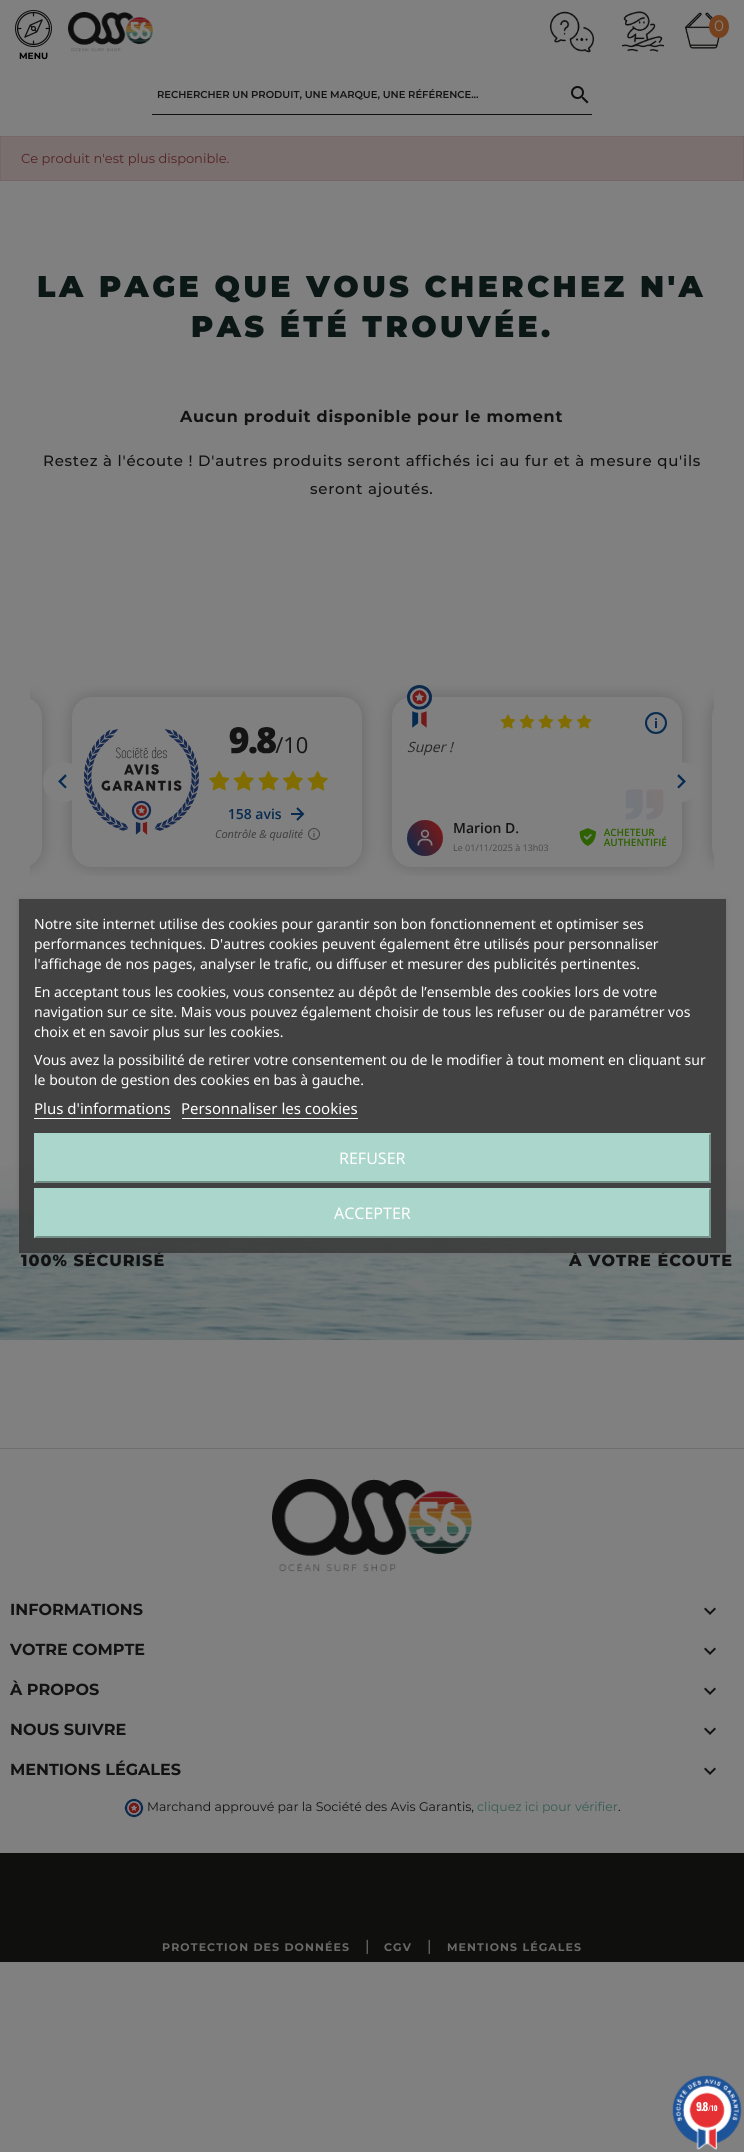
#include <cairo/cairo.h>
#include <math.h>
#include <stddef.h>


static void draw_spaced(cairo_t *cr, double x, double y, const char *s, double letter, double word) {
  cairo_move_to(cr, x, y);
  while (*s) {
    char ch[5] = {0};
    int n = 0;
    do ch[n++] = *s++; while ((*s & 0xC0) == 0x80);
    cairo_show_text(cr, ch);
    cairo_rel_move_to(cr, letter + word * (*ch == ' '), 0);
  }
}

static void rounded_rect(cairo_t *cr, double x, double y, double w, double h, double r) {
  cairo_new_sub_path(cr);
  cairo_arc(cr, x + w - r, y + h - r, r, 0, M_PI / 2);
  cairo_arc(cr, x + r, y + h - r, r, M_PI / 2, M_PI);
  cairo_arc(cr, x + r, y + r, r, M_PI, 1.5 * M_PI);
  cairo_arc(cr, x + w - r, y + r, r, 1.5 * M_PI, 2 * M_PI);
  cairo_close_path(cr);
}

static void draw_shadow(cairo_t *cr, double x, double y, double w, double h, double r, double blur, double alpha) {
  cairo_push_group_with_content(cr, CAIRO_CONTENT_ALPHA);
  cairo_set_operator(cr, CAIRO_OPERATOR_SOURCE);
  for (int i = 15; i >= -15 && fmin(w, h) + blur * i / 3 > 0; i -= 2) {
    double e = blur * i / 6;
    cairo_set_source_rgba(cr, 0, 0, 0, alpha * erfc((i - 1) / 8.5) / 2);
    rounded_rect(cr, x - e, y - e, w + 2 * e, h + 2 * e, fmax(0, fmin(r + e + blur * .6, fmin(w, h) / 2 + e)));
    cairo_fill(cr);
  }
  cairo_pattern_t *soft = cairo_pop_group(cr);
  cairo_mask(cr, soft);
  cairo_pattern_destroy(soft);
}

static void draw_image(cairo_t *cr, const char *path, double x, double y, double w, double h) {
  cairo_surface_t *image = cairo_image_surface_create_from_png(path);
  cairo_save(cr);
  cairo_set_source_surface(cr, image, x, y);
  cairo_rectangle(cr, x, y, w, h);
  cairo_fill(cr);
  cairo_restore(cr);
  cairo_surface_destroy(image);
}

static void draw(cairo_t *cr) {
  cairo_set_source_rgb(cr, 128 / 255.0, 128 / 255.0, 128 / 255.0);
  cairo_paint(cr);
  draw_image(cr, "images/1.png", 68, 12, 85, 40);
  draw_image(cr, "images/2.png", 550, 11, 44, 42);
  draw_image(cr, "images/3.png", 622, 11, 42, 41);
  draw_image(cr, "images/4.png", 685, 12, 35, 37);
  cairo_set_source_rgb(cr, 118 / 255.0, 65 / 255.0, 30 / 255.0);
  cairo_new_path(cr);
  cairo_move_to(cr, 719, 15);
  cairo_curve_to(cr, 724.5, 15, 729, 20, 729, 26.5);
  cairo_curve_to(cr, 729, 33, 724.5, 38, 719, 38);
  cairo_curve_to(cr, 713.5, 38, 709, 33, 709, 26.5);
  cairo_curve_to(cr, 709, 20, 713.5, 15, 719, 15);
  cairo_close_path(cr);
  cairo_fill(cr);
  draw_image(cr, "images/5.png", 15, 10, 37, 37);
  cairo_set_source_rgb(cr, 15 / 255.0, 15 / 255.0, 14 / 255.0);
  cairo_rectangle(cr, 152, 114, 440, 1);
  cairo_fill(cr);
  draw_image(cr, "images/6.png", 571, 86, 18, 18);
  cairo_set_source_rgb(cr, 121 / 255.0, 111 / 255.0, 111 / 255.0);
  cairo_rectangle(cr, 0.5, 136.5, 743, 44);
  cairo_fill_preserve(cr);
  cairo_set_source_rgb(cr, 118 / 255.0, 102 / 255.0, 102 / 255.0);
  cairo_set_line_width(cr, 1);
  cairo_stroke(cr);
  draw_image(cr, "images/7.png", 30, 685, 684, 191);
  draw_image(cr, "images/11.png", 0, 1166, 744, 174);
  cairo_save(cr);
  cairo_set_fill_rule(cr, CAIRO_FILL_RULE_EVEN_ODD);
  cairo_new_path(cr);
  cairo_move_to(cr, 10, 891);
  cairo_line_to(cr, 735, 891);
  cairo_line_to(cr, 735, 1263);
  cairo_line_to(cr, 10, 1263);
  cairo_close_path(cr);
  cairo_move_to(cr, 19, 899);
  cairo_line_to(cr, 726, 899);
  cairo_line_to(cr, 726, 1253);
  cairo_line_to(cr, 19, 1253);
  cairo_close_path(cr);
  cairo_clip(cr);
  cairo_set_source_rgb(cr, 112 / 255.0, 112 / 255.0, 112 / 255.0);
  draw_shadow(cr, 19, 900, 707, 354, 0, 2.5, 1);
  cairo_restore(cr);
  draw_image(cr, "images/8.png", 704, 1607, 12, 8);
  draw_image(cr, "images/8.png", 704, 1647, 12, 8);
  draw_image(cr, "images/8.png", 704, 1687, 12, 8);
  draw_image(cr, "images/8.png", 704, 1727, 12, 8);
  draw_image(cr, "images/8.png", 704, 1767, 12, 8);
  draw_image(cr, "images/9.png", 124, 1798, 20, 20);
  cairo_set_source_rgb(cr, 111 / 255.0, 111 / 255.0, 111 / 255.0);
  cairo_rectangle(cr, 0, 1448, 744, 1);
  cairo_fill(cr);
  draw_image(cr, "images/10.png", 272, 1479, 200, 93);
  cairo_set_source_rgb(cr, 15 / 255.0, 15 / 255.0, 14 / 255.0);
  cairo_rectangle(cr, 0, 1853, 744, 109);
  cairo_fill(cr);
  draw_image(cr, "images/12.png", 672, 2075, 70, 75);
  cairo_select_font_face(cr, "Montserrat", CAIRO_FONT_SLANT_NORMAL, CAIRO_FONT_WEIGHT_NORMAL);
  cairo_set_font_size(cr, 15);
  cairo_set_source_rgb(cr, 128 / 255.0, 128 / 255.0, 128 / 255.0);
  cairo_move_to(cr, 714, 31);
  cairo_show_text(cr, "0");
  cairo_select_font_face(cr, "Montserrat", CAIRO_FONT_SLANT_NORMAL, CAIRO_FONT_WEIGHT_BOLD);
  cairo_set_font_size(cr, 9);
  cairo_set_source_rgb(cr, 0, 0, 0);
  cairo_move_to(cr, 19, 59);
  cairo_show_text(cr, "MENU");
  cairo_select_font_face(cr, "Montserrat SemiBold", CAIRO_FONT_SLANT_NORMAL, CAIRO_FONT_WEIGHT_NORMAL);
  cairo_set_font_size(cr, 10);
  cairo_set_source_rgb(cr, 18 / 255.0, 18 / 255.0, 18 / 255.0);
  cairo_move_to(cr, 157, 98);
  cairo_show_text(cr, "RECHERCHER UN PRODUIT, UNE MARQUE, UNE RÉFÉRENCE...");
  cairo_select_font_face(cr, "Montserrat", CAIRO_FONT_SLANT_NORMAL, CAIRO_FONT_WEIGHT_NORMAL);
  cairo_set_font_size(cr, 13);
  cairo_set_source_rgb(cr, 85 / 255.0, 34 / 255.0, 33 / 255.0);
  cairo_move_to(cr, 21, 163);
  cairo_show_text(cr, "Ce produit n'est plus disponible.");
  cairo_select_font_face(cr, "Montserrat Black", CAIRO_FONT_SLANT_NORMAL, CAIRO_FONT_WEIGHT_NORMAL);
  cairo_set_font_size(cr, 30);
  cairo_set_source_rgb(cr, 11 / 255.0, 23 / 255.0, 21 / 255.0);
  draw_spaced(cr, 37, 297, "LA PAGE QUE VOUS CHERCHEZ N'A", 3.4, 0);
  draw_spaced(cr, 191, 337, "PAS ÉTÉ TROUVÉE.", 3.4, 0);
  cairo_select_font_face(cr, "Montserrat", CAIRO_FONT_SLANT_NORMAL, CAIRO_FONT_WEIGHT_BOLD);
  cairo_set_font_size(cr, 16);
  cairo_set_source_rgb(cr, 18 / 255.0, 18 / 255.0, 18 / 255.0);
  draw_spaced(cr, 180, 422, "Aucun produit disponible pour le moment", 0.75, 0);
  cairo_select_font_face(cr, "Montserrat Medium", CAIRO_FONT_SLANT_NORMAL, CAIRO_FONT_WEIGHT_NORMAL);
  cairo_set_font_size(cr, 15);
  draw_spaced(cr, 43, 466, "Restez à l'écoute ! D'autres produits seront affichés ici au fur et à mesure qu'ils", 0.75, 0);
  draw_spaced(cr, 310, 494, "seront ajoutés.", 0.75, 0);
  cairo_select_font_face(cr, "Montserrat", CAIRO_FONT_SLANT_NORMAL, CAIRO_FONT_WEIGHT_BOLD);
  cairo_set_font_size(cr, 16);
  cairo_move_to(cr, 10, 1615);
  cairo_show_text(cr, "INFORMATIONS");
  cairo_move_to(cr, 10, 1655);
  cairo_show_text(cr, "VOTRE COMPTE");
  cairo_move_to(cr, 10, 1695);
  cairo_show_text(cr, "À PROPOS");
  cairo_move_to(cr, 10, 1735);
  cairo_show_text(cr, "NOUS SUIVRE");
  cairo_move_to(cr, 10, 1775);
  cairo_show_text(cr, "MENTIONS LÉGALES");
  cairo_select_font_face(cr, "Montserrat", CAIRO_FONT_SLANT_NORMAL, CAIRO_FONT_WEIGHT_NORMAL);
  cairo_set_font_size(cr, 12.5);
  cairo_move_to(cr, 147, 1811);
  cairo_show_text(cr, "Marchand approuvé par la Société des Avis Garantis,");
  cairo_set_source_rgb(cr, 55 / 255.0, 92 / 255.0, 83 / 255.0);
  cairo_move_to(cr, 477, 1811);
  cairo_show_text(cr, "cliquez ici pour vérifier");
  cairo_set_source_rgb(cr, 18 / 255.0, 18 / 255.0, 18 / 255.0);
  cairo_move_to(cr, 618, 1811);
  cairo_show_text(cr, ".");
  cairo_select_font_face(cr, "Montserrat ExtraBold", CAIRO_FONT_SLANT_NORMAL, CAIRO_FONT_WEIGHT_NORMAL);
  cairo_set_font_size(cr, 16);
  draw_spaced(cr, 21, 1266, "100% SÉCURISÉ", 1, 0);
  draw_spaced(cr, 569, 1266, "À VOTRE ÉCOUTE", 1, 0);
  cairo_set_source_rgba(cr, 59 / 255.0, 59 / 255.0, 59 / 255.0, 0.9);
  cairo_rectangle(cr, 19, 899, 707, 354);
  cairo_fill(cr);
  cairo_select_font_face(cr, "Noto Sans", CAIRO_FONT_SLANT_NORMAL, CAIRO_FONT_WEIGHT_NORMAL);
  cairo_set_font_size(cr, 15);
  cairo_set_source_rgb(cr, 1, 1, 1);
  cairo_move_to(cr, 181, 1114);
  cairo_show_text(cr, "Personnaliser les cookies");
  cairo_rectangle(cr, 182, 1118, 176, 1);
  cairo_fill(cr);
  cairo_move_to(cr, 34, 1114);
  cairo_show_text(cr, "Plus d'informations");
  cairo_rectangle(cr, 34, 1118, 137, 1);
  cairo_fill(cr);
  cairo_set_font_size(cr, 14);
  cairo_move_to(cr, 34, 1085);
  cairo_show_text(cr, "le bouton de gestion des cookies en bas à gauche.");
  cairo_move_to(cr, 34, 1065);
  cairo_show_text(cr, "Vous avez la possibilité de retirer votre consentement ou de le modifier à tout moment en cliquant sur");
  cairo_move_to(cr, 34, 1037);
  cairo_show_text(cr, "choix et en savoir plus sur les cookies.");
  cairo_move_to(cr, 34, 1017);
  cairo_show_text(cr, "navigation sur ce site. Mais vous pouvez également choisir de tous les refuser ou de paramétrer vos");
  cairo_move_to(cr, 34, 997);
  cairo_show_text(cr, "En acceptant tous les cookies, vous consentez au dépôt de l’ensemble des cookies lors de votre");
  cairo_move_to(cr, 34, 969);
  cairo_show_text(cr, "l'affichage de nos pages, analyser le trafic, ou diffuser et mesurer des publicités pertinentes.");
  cairo_move_to(cr, 34, 949);
  cairo_show_text(cr, "performances techniques. D'autres cookies peuvent également être utilisés pour personnaliser");
  cairo_move_to(cr, 34, 929);
  cairo_show_text(cr, "Notre site internet utilise des cookies pour garantir son bon fonctionnement et optimiser ses");
  cairo_set_source_rgb(cr, 171 / 255.0, 214 / 255.0, 203 / 255.0);
  cairo_rectangle(cr, 34, 1188, 677, 50);
  cairo_fill(cr);
  cairo_set_font_size(cr, 16);
  cairo_set_source_rgb(cr, 1, 1, 1);
  cairo_move_to(cr, 334, 1219);
  cairo_show_text(cr, "ACCEPTER");
  cairo_set_source_rgb(cr, 114 / 255.0, 143 / 255.0, 135 / 255.0);
  cairo_new_path(cr);
  cairo_move_to(cr, 711, 1188);
  cairo_line_to(cr, 711, 1238);
  cairo_line_to(cr, 709, 1236);
  cairo_line_to(cr, 709, 1190);
  cairo_close_path(cr);
  cairo_fill(cr);
  cairo_new_path(cr);
  cairo_move_to(cr, 711, 1238);
  cairo_line_to(cr, 34, 1238);
  cairo_line_to(cr, 36, 1236);
  cairo_line_to(cr, 709, 1236);
  cairo_close_path(cr);
  cairo_fill(cr);
  cairo_set_source_rgb(cr, 171 / 255.0, 214 / 255.0, 203 / 255.0);
  cairo_new_path(cr);
  cairo_move_to(cr, 34, 1238);
  cairo_line_to(cr, 34, 1188);
  cairo_line_to(cr, 36, 1190);
  cairo_line_to(cr, 36, 1236);
  cairo_close_path(cr);
  cairo_fill(cr);
  cairo_rectangle(cr, 34, 1133, 677, 50);
  cairo_fill(cr);
  cairo_set_source_rgb(cr, 1, 1, 1);
  cairo_move_to(cr, 339, 1164);
  cairo_show_text(cr, "REFUSER");
  cairo_set_source_rgb(cr, 114 / 255.0, 143 / 255.0, 135 / 255.0);
  cairo_new_path(cr);
  cairo_move_to(cr, 711, 1133);
  cairo_line_to(cr, 711, 1183);
  cairo_line_to(cr, 709, 1181);
  cairo_line_to(cr, 709, 1135);
  cairo_close_path(cr);
  cairo_fill(cr);
  cairo_new_path(cr);
  cairo_move_to(cr, 711, 1183);
  cairo_line_to(cr, 34, 1183);
  cairo_line_to(cr, 36, 1181);
  cairo_line_to(cr, 709, 1181);
  cairo_close_path(cr);
  cairo_fill(cr);
  cairo_set_source_rgb(cr, 171 / 255.0, 214 / 255.0, 203 / 255.0);
  cairo_new_path(cr);
  cairo_move_to(cr, 34, 1183);
  cairo_line_to(cr, 34, 1133);
  cairo_line_to(cr, 36, 1135);
  cairo_line_to(cr, 36, 1181);
  cairo_close_path(cr);
  cairo_fill(cr);
  cairo_select_font_face(cr, "Montserrat", CAIRO_FONT_SLANT_NORMAL, CAIRO_FONT_WEIGHT_BOLD);
  cairo_set_font_size(cr, 11);
  cairo_set_source_rgb(cr, 105 / 255.0, 105 / 255.0, 105 / 255.0);
  draw_spaced(cr, 162, 1951, "PROTECTION DES DONNÉES", 1.1, 0);
  cairo_select_font_face(cr, "Montserrat", CAIRO_FONT_SLANT_NORMAL, CAIRO_FONT_WEIGHT_NORMAL);
  cairo_set_font_size(cr, 15);
  cairo_set_source_rgb(cr, 128 / 255.0, 128 / 255.0, 128 / 255.0);
  cairo_move_to(cr, 365, 1951);
  cairo_show_text(cr, "|");
  cairo_select_font_face(cr, "Montserrat", CAIRO_FONT_SLANT_NORMAL, CAIRO_FONT_WEIGHT_BOLD);
  cairo_set_font_size(cr, 11);
  cairo_set_source_rgb(cr, 105 / 255.0, 105 / 255.0, 105 / 255.0);
  draw_spaced(cr, 384, 1951, "CGV", 1.1, 0);
  cairo_select_font_face(cr, "Montserrat", CAIRO_FONT_SLANT_NORMAL, CAIRO_FONT_WEIGHT_NORMAL);
  cairo_set_font_size(cr, 15);
  cairo_set_source_rgb(cr, 128 / 255.0, 128 / 255.0, 128 / 255.0);
  cairo_move_to(cr, 427, 1951);
  cairo_show_text(cr, "|");
  cairo_select_font_face(cr, "Montserrat", CAIRO_FONT_SLANT_NORMAL, CAIRO_FONT_WEIGHT_BOLD);
  cairo_set_font_size(cr, 11);
  cairo_set_source_rgb(cr, 105 / 255.0, 105 / 255.0, 105 / 255.0);
  draw_spaced(cr, 447, 1951, "MENTIONS LÉGALES", 1.1, 0);
  cairo_select_font_face(cr, "Oswald", CAIRO_FONT_SLANT_NORMAL, CAIRO_FONT_WEIGHT_BOLD);
  cairo_set_source_rgb(cr, 1, 1, 1);
  draw_spaced(cr, 696, 2111, "9.8", -1, 0);
  cairo_set_font_size(cr, 7);
  cairo_move_to(cr, 708, 2111);
  cairo_show_text(cr, "/10");
}

int main(void) {
  cairo_surface_t *surface = cairo_image_surface_create(CAIRO_FORMAT_RGB24, 744, 2152);
  cairo_t *cr = cairo_create(surface);
  cairo_font_options_t *options = cairo_font_options_create();
  cairo_font_options_set_hint_metrics(options, CAIRO_HINT_METRICS_OFF);
  cairo_font_options_set_hint_style(options, CAIRO_HINT_STYLE_NONE);
  cairo_set_font_options(cr, options);
  cairo_set_miter_limit(cr, 4);
  draw(cr);
  cairo_surface_write_to_png(surface, "out.png");
  cairo_font_options_destroy(options);
  cairo_destroy(cr);
  cairo_surface_destroy(surface);
  return 0;
}
